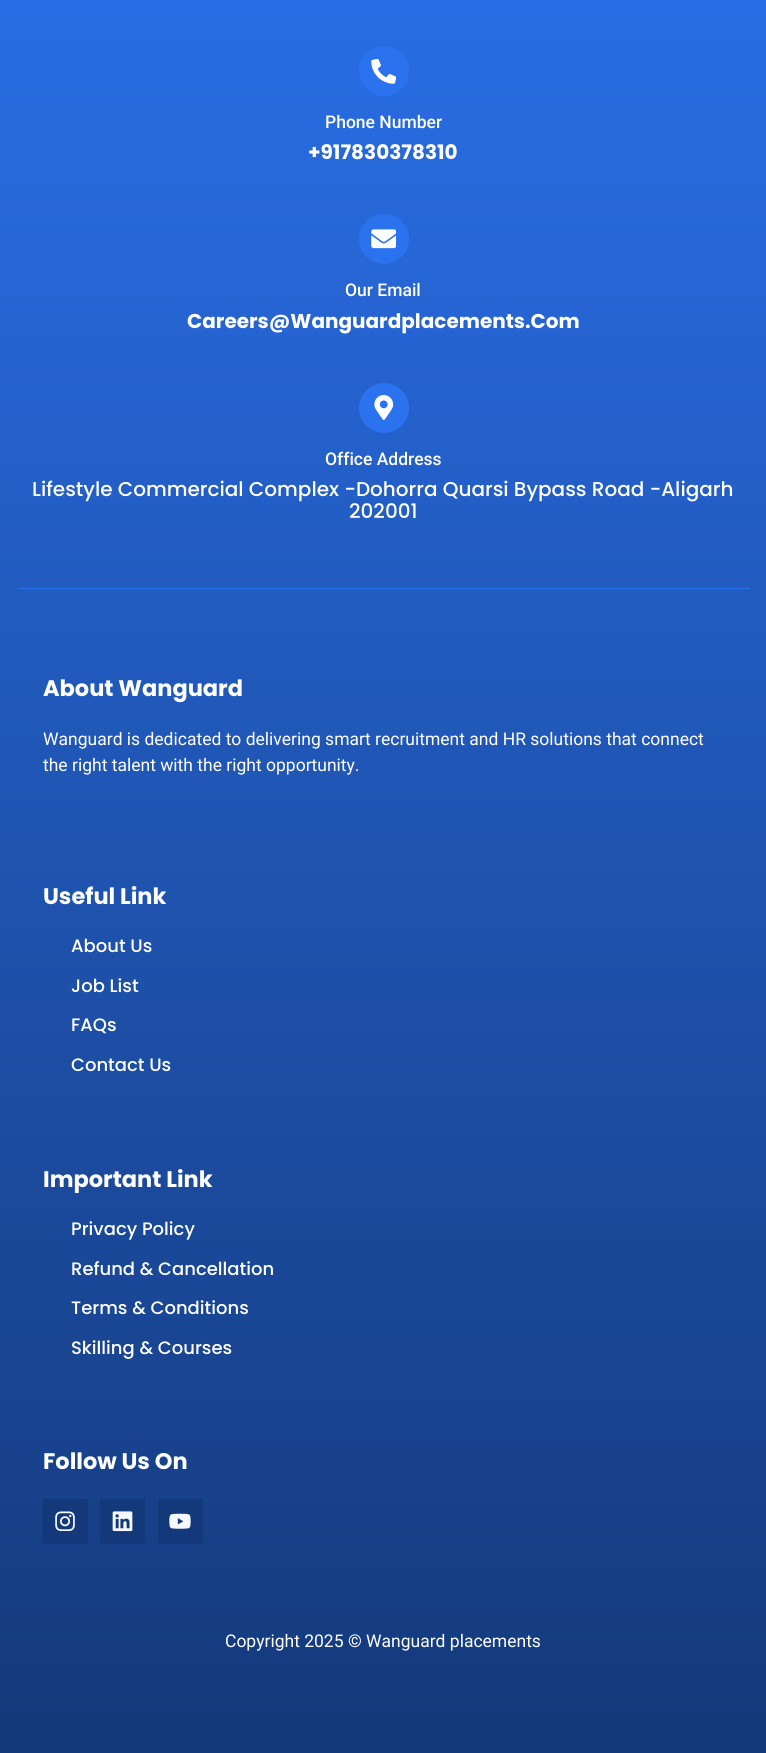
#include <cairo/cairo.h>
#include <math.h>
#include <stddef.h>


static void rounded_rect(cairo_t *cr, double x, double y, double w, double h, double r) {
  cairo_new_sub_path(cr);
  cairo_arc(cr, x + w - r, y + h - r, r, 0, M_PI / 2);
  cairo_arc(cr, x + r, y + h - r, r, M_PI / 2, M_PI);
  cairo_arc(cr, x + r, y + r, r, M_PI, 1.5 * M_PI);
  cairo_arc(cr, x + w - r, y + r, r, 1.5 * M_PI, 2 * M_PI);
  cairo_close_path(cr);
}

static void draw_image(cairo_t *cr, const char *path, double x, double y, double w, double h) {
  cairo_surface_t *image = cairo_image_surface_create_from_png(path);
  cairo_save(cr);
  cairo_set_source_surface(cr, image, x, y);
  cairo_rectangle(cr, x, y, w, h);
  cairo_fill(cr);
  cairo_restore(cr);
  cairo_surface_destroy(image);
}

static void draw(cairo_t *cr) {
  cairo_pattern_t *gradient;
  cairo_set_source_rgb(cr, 1, 1, 1);
  cairo_paint(cr);
  gradient = cairo_pattern_create_linear(383, -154, 383, 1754);
  cairo_pattern_add_color_stop_rgba(gradient, 0, 43 / 255.0, 114 / 255.0, 238 / 255.0, 1);
  cairo_pattern_add_color_stop_rgba(gradient, 1, 20 / 255.0, 57 / 255.0, 122 / 255.0, 1);
  cairo_set_source(cr, gradient);
  cairo_pattern_destroy(gradient);
  cairo_rectangle(cr, 0, 0, 766, 1753);
  cairo_fill(cr);
  cairo_set_source_rgb(cr, 43 / 255.0, 114 / 255.0, 238 / 255.0);
  cairo_rectangle(cr, 18, 588, 731, 1);
  cairo_fill(cr);
  cairo_arc(cr, 384, 71, 25, 0, 2 * M_PI);
  cairo_fill(cr);
  draw_image(cr, "images/1.png", 371, 59, 25, 25);
  cairo_arc(cr, 384, 239, 25, 0, 2 * M_PI);
  cairo_fill(cr);
  draw_image(cr, "images/2.png", 371, 229, 25, 20);
  cairo_arc(cr, 384, 408, 25, 0, 2 * M_PI);
  cairo_fill(cr);
  draw_image(cr, "images/3.png", 374, 395, 20, 25);
  cairo_set_source_rgb(cr, 20 / 255.0, 57 / 255.0, 122 / 255.0);
  rounded_rect(cr, 43, 1499, 45, 45, 1);
  cairo_fill(cr);
  draw_image(cr, "images/4.png", 55, 1511, 20, 20);
  rounded_rect(cr, 100, 1499, 45, 45, 1);
  cairo_fill(cr);
  draw_image(cr, "images/5.png", 112, 1511, 21, 21);
  rounded_rect(cr, 158, 1499, 45, 45, 1);
  cairo_fill(cr);
  draw_image(cr, "images/6.png", 169, 1513, 22, 16);
  cairo_select_font_face(cr, "Roboto Medium", CAIRO_FONT_SLANT_NORMAL, CAIRO_FONT_WEIGHT_NORMAL);
  cairo_set_font_size(cr, 17.5);
  cairo_set_source_rgb(cr, 1, 1, 1);
  cairo_move_to(cr, 325, 128);
  cairo_show_text(cr, "Phone Number");
  cairo_select_font_face(cr, "Poppins", CAIRO_FONT_SLANT_NORMAL, CAIRO_FONT_WEIGHT_BOLD);
  cairo_set_font_size(cr, 20);
  cairo_move_to(cr, 308, 159);
  cairo_show_text(cr, "+917830378310");
  cairo_select_font_face(cr, "Roboto Medium", CAIRO_FONT_SLANT_NORMAL, CAIRO_FONT_WEIGHT_NORMAL);
  cairo_set_font_size(cr, 17.5);
  cairo_move_to(cr, 345, 296);
  cairo_show_text(cr, "Our Email");
  cairo_select_font_face(cr, "Poppins", CAIRO_FONT_SLANT_NORMAL, CAIRO_FONT_WEIGHT_BOLD);
  cairo_set_font_size(cr, 20);
  cairo_move_to(cr, 187, 328);
  cairo_show_text(cr, "Careers@Wanguardplacements.Com");
  cairo_select_font_face(cr, "Roboto Medium", CAIRO_FONT_SLANT_NORMAL, CAIRO_FONT_WEIGHT_NORMAL);
  cairo_set_font_size(cr, 17.5);
  cairo_move_to(cr, 325, 465);
  cairo_show_text(cr, "Office Address");
  cairo_select_font_face(cr, "Poppins Medium", CAIRO_FONT_SLANT_NORMAL, CAIRO_FONT_WEIGHT_NORMAL);
  cairo_set_font_size(cr, 20);
  cairo_move_to(cr, 32, 496);
  cairo_show_text(cr, "Lifestyle Commercial Complex -Dohorra Quarsi Bypass Road -Aligarh");
  cairo_move_to(cr, 349, 518);
  cairo_show_text(cr, "202001");
  cairo_select_font_face(cr, "Poppins", CAIRO_FONT_SLANT_NORMAL, CAIRO_FONT_WEIGHT_BOLD);
  cairo_set_font_size(cr, 22.5);
  cairo_move_to(cr, 43, 696);
  cairo_show_text(cr, "About Wanguard");
  cairo_select_font_face(cr, "Roboto", CAIRO_FONT_SLANT_NORMAL, CAIRO_FONT_WEIGHT_NORMAL);
  cairo_set_font_size(cr, 17.5);
  cairo_move_to(cr, 43, 745);
  cairo_show_text(cr, "Wanguard is dedicated to delivering smart recruitment and HR solutions that connect");
  cairo_move_to(cr, 43, 771);
  cairo_show_text(cr, "the right talent with the right opportunity.");
  cairo_select_font_face(cr, "Poppins", CAIRO_FONT_SLANT_NORMAL, CAIRO_FONT_WEIGHT_BOLD);
  cairo_set_font_size(cr, 22.5);
  cairo_move_to(cr, 43, 904);
  cairo_show_text(cr, "Useful Link");
  cairo_select_font_face(cr, "Poppins Medium", CAIRO_FONT_SLANT_NORMAL, CAIRO_FONT_WEIGHT_NORMAL);
  cairo_set_font_size(cr, 18);
  cairo_move_to(cr, 71, 952);
  cairo_show_text(cr, "About Us");
  cairo_move_to(cr, 71, 992);
  cairo_show_text(cr, "Job List");
  cairo_move_to(cr, 71, 1031);
  cairo_show_text(cr, "FAQs");
  cairo_move_to(cr, 71, 1071);
  cairo_show_text(cr, "Contact Us");
  cairo_select_font_face(cr, "Poppins", CAIRO_FONT_SLANT_NORMAL, CAIRO_FONT_WEIGHT_BOLD);
  cairo_set_font_size(cr, 22.5);
  cairo_move_to(cr, 43, 1187);
  cairo_show_text(cr, "Important Link");
  cairo_select_font_face(cr, "Poppins Medium", CAIRO_FONT_SLANT_NORMAL, CAIRO_FONT_WEIGHT_NORMAL);
  cairo_set_font_size(cr, 18);
  cairo_move_to(cr, 71, 1235);
  cairo_show_text(cr, "Privacy Policy");
  cairo_move_to(cr, 71, 1275);
  cairo_show_text(cr, "Refund & Cancellation");
  cairo_move_to(cr, 71, 1314);
  cairo_show_text(cr, "Terms & Conditions");
  cairo_move_to(cr, 71, 1354);
  cairo_show_text(cr, "Skilling & Courses");
  cairo_select_font_face(cr, "Poppins", CAIRO_FONT_SLANT_NORMAL, CAIRO_FONT_WEIGHT_BOLD);
  cairo_set_font_size(cr, 22.5);
  cairo_move_to(cr, 43, 1469);
  cairo_show_text(cr, "Follow Us On");
  cairo_select_font_face(cr, "Roboto", CAIRO_FONT_SLANT_NORMAL, CAIRO_FONT_WEIGHT_NORMAL);
  cairo_set_font_size(cr, 17.5);
  cairo_move_to(cr, 225, 1647);
  cairo_show_text(cr, "Copyright 2025 © Wanguard placements");
}

int main(void) {
  cairo_surface_t *surface = cairo_image_surface_create(CAIRO_FORMAT_RGB24, 766, 1753);
  cairo_t *cr = cairo_create(surface);
  cairo_font_options_t *options = cairo_font_options_create();
  cairo_font_options_set_hint_metrics(options, CAIRO_HINT_METRICS_OFF);
  cairo_font_options_set_hint_style(options, CAIRO_HINT_STYLE_NONE);
  cairo_set_font_options(cr, options);
  cairo_set_miter_limit(cr, 4);
  draw(cr);
  cairo_surface_write_to_png(surface, "out.png");
  cairo_font_options_destroy(options);
  cairo_destroy(cr);
  cairo_surface_destroy(surface);
  return 0;
}
